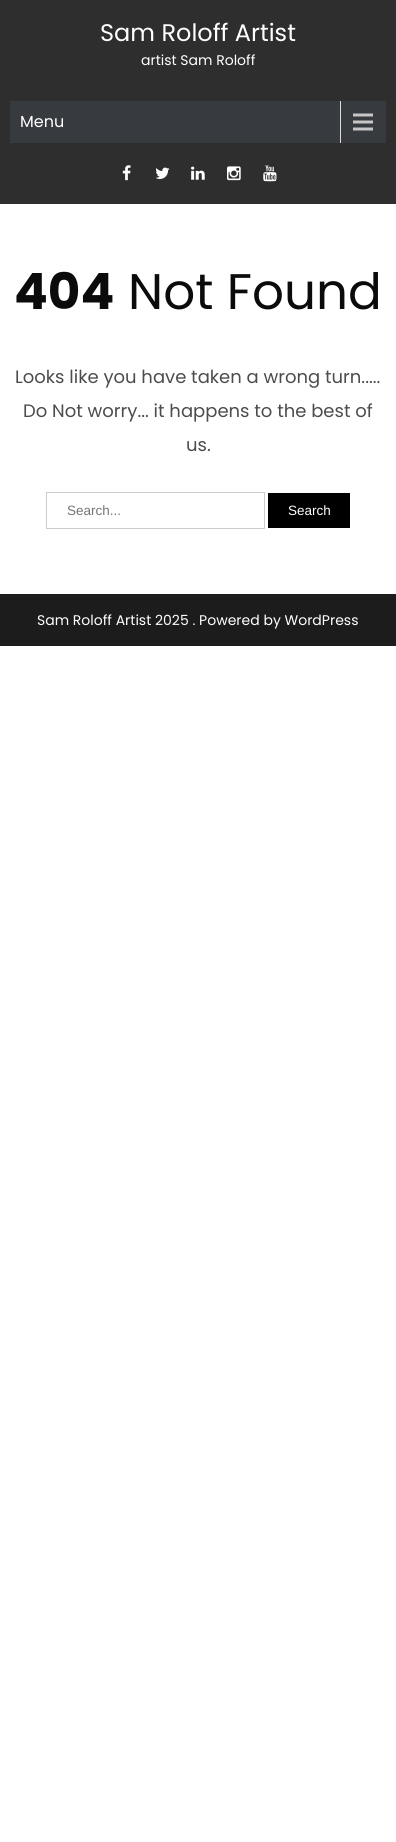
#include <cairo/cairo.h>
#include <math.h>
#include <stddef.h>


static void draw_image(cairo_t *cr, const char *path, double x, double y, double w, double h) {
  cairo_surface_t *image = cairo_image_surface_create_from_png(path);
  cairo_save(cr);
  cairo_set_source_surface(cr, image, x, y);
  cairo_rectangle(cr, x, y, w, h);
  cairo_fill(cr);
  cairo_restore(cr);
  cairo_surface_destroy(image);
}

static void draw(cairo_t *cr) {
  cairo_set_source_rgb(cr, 1, 1, 1);
  cairo_paint(cr);
  cairo_set_source_rgb(cr, 46 / 255.0, 46 / 255.0, 46 / 255.0);
  cairo_rectangle(cr, 0, 0, 396, 204);
  cairo_fill(cr);
  cairo_set_source_rgb(cr, 55 / 255.0, 58 / 255.0, 63 / 255.0);
  cairo_rectangle(cr, 10, 101, 376, 42);
  cairo_fill(cr);
  draw_image(cr, "images/1.png", 340, 101, 33, 42);
  draw_image(cr, "images/2.png", 122, 165, 9, 16);
  draw_image(cr, "images/3.png", 155, 167, 15, 12);
  draw_image(cr, "images/4.png", 191, 166, 14, 14);
  draw_image(cr, "images/5.png", 227, 166, 14, 15);
  draw_image(cr, "images/6.png", 263, 165, 14, 17);
  cairo_rectangle(cr, 46.5, 492.5, 218, 36);
  cairo_set_source_rgb(cr, 204 / 255.0, 204 / 255.0, 204 / 255.0);
  cairo_set_line_width(cr, 1);
  cairo_stroke(cr);
  cairo_set_source_rgb(cr, 0, 0, 0);
  cairo_rectangle(cr, 268, 493, 82, 35);
  cairo_fill(cr);
  cairo_set_source_rgb(cr, 28 / 255.0, 28 / 255.0, 28 / 255.0);
  cairo_rectangle(cr, 0, 594, 396, 52);
  cairo_fill(cr);
  cairo_select_font_face(cr, "Poppins", CAIRO_FONT_SLANT_NORMAL, CAIRO_FONT_WEIGHT_NORMAL);
  cairo_set_font_size(cr, 24);
  cairo_set_source_rgb(cr, 1, 1, 1);
  cairo_move_to(cr, 100, 41);
  cairo_show_text(cr, "Sam Roloff Artist");
  cairo_set_font_size(cr, 14);
  cairo_move_to(cr, 141, 65);
  cairo_show_text(cr, "artist Sam Roloff");
  cairo_set_font_size(cr, 16);
  cairo_move_to(cr, 20, 127);
  cairo_show_text(cr, "Menu");
  cairo_select_font_face(cr, "Poppins", CAIRO_FONT_SLANT_NORMAL, CAIRO_FONT_WEIGHT_BOLD);
  cairo_set_font_size(cr, 50);
  cairo_set_source_rgb(cr, 11 / 255.0, 11 / 255.0, 11 / 255.0);
  cairo_move_to(cr, 14, 309);
  cairo_show_text(cr, "404");
  cairo_select_font_face(cr, "Poppins", CAIRO_FONT_SLANT_NORMAL, CAIRO_FONT_WEIGHT_NORMAL);
  cairo_move_to(cr, 128, 309);
  cairo_show_text(cr, "Not Found");
  cairo_set_font_size(cr, 18);
  cairo_set_source_rgb(cr, 76 / 255.0, 76 / 255.0, 76 / 255.0);
  cairo_move_to(cr, 15, 383);
  cairo_show_text(cr, "Looks like you have taken a wrong turn.....");
  cairo_move_to(cr, 23, 417);
  cairo_show_text(cr, "Do Not worry... it happens to the best of");
  cairo_move_to(cr, 186, 451);
  cairo_show_text(cr, "us.");
  cairo_select_font_face(cr, "Liberation Sans", CAIRO_FONT_SLANT_NORMAL, CAIRO_FONT_WEIGHT_NORMAL);
  cairo_set_font_size(cr, 13.5);
  cairo_set_source_rgb(cr, 117 / 255.0, 117 / 255.0, 117 / 255.0);
  cairo_move_to(cr, 67, 515);
  cairo_show_text(cr, "Search...");
  cairo_set_source_rgb(cr, 1, 1, 1);
  cairo_move_to(cr, 288, 515);
  cairo_show_text(cr, "Search");
  cairo_select_font_face(cr, "Poppins", CAIRO_FONT_SLANT_NORMAL, CAIRO_FONT_WEIGHT_NORMAL);
  cairo_set_font_size(cr, 14);
  cairo_move_to(cr, 37, 625);
  cairo_show_text(cr, "Sam Roloff Artist 2025 . Powered by WordPress");
}

int main(void) {
  cairo_surface_t *surface = cairo_image_surface_create(CAIRO_FORMAT_RGB24, 396, 1842);
  cairo_t *cr = cairo_create(surface);
  cairo_font_options_t *options = cairo_font_options_create();
  cairo_font_options_set_hint_metrics(options, CAIRO_HINT_METRICS_OFF);
  cairo_font_options_set_hint_style(options, CAIRO_HINT_STYLE_NONE);
  cairo_set_font_options(cr, options);
  cairo_set_miter_limit(cr, 4);
  draw(cr);
  cairo_surface_write_to_png(surface, "out.png");
  cairo_font_options_destroy(options);
  cairo_destroy(cr);
  cairo_surface_destroy(surface);
  return 0;
}
